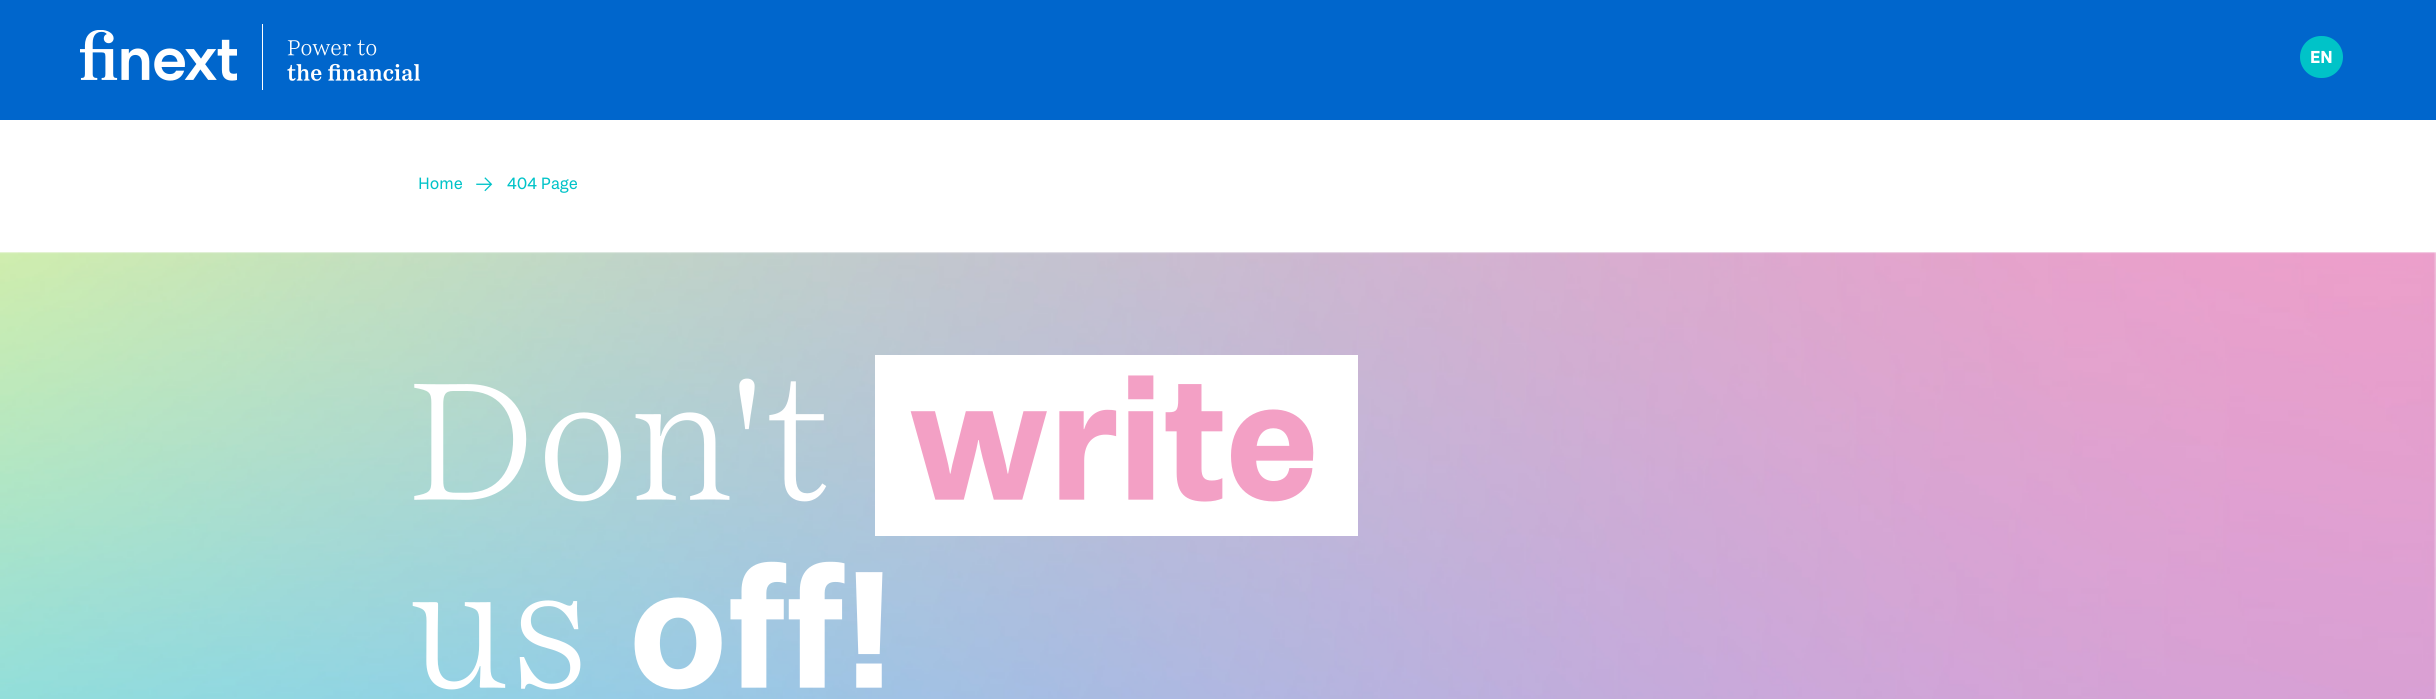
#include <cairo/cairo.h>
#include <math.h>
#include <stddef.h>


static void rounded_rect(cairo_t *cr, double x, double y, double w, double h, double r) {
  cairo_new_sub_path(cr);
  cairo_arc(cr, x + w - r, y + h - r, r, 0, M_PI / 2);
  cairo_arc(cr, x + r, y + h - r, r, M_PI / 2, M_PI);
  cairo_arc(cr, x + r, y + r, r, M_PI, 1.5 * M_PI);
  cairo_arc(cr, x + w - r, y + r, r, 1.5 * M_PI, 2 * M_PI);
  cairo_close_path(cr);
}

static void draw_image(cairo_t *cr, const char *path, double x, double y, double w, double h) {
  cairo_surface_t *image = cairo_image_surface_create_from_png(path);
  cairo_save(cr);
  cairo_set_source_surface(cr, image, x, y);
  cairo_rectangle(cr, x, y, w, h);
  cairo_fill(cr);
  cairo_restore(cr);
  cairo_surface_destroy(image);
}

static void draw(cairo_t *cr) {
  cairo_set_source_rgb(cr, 1, 1, 1);
  cairo_paint(cr);
  cairo_set_source_rgb(cr, 0, 102 / 255.0, 204 / 255.0);
  cairo_rectangle(cr, 0, 0, 2436, 120);
  cairo_fill(cr);
  draw_image(cr, "images/1.png", 80, 24, 340, 66);
  cairo_set_source_rgb(cr, 0, 195 / 255.0, 200 / 255.0);
  rounded_rect(cr, 2300, 36, 43, 42, 21);
  cairo_fill(cr);
  draw_image(cr, "images/2.png", 476, 177, 17, 15);
  draw_image(cr, "images/3.png", 0, 252, 2436, 447);
  draw_image(cr, "images/4.png", 412, 355, 946, 335);
  cairo_select_font_face(cr, "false", CAIRO_FONT_SLANT_NORMAL, CAIRO_FONT_WEIGHT_BOLD);
  cairo_set_font_size(cr, 18);
  cairo_set_source_rgb(cr, 1, 1, 1);
  cairo_move_to(cr, 2310, 63);
  cairo_show_text(cr, "EN");
  cairo_select_font_face(cr, "false", CAIRO_FONT_SLANT_NORMAL, CAIRO_FONT_WEIGHT_NORMAL);
  cairo_set_font_size(cr, 17);
  cairo_set_source_rgb(cr, 0, 195 / 255.0, 200 / 255.0);
  cairo_move_to(cr, 418, 189);
  cairo_show_text(cr, "Home");
  cairo_move_to(cr, 507, 189);
  cairo_show_text(cr, "404 Page");
}

int main(void) {
  cairo_surface_t *surface = cairo_image_surface_create(CAIRO_FORMAT_RGB24, 2436, 699);
  cairo_t *cr = cairo_create(surface);
  cairo_font_options_t *options = cairo_font_options_create();
  cairo_font_options_set_hint_metrics(options, CAIRO_HINT_METRICS_OFF);
  cairo_font_options_set_hint_style(options, CAIRO_HINT_STYLE_NONE);
  cairo_set_font_options(cr, options);
  cairo_set_miter_limit(cr, 4);
  draw(cr);
  cairo_surface_write_to_png(surface, "out.png");
  cairo_font_options_destroy(options);
  cairo_destroy(cr);
  cairo_surface_destroy(surface);
  return 0;
}
